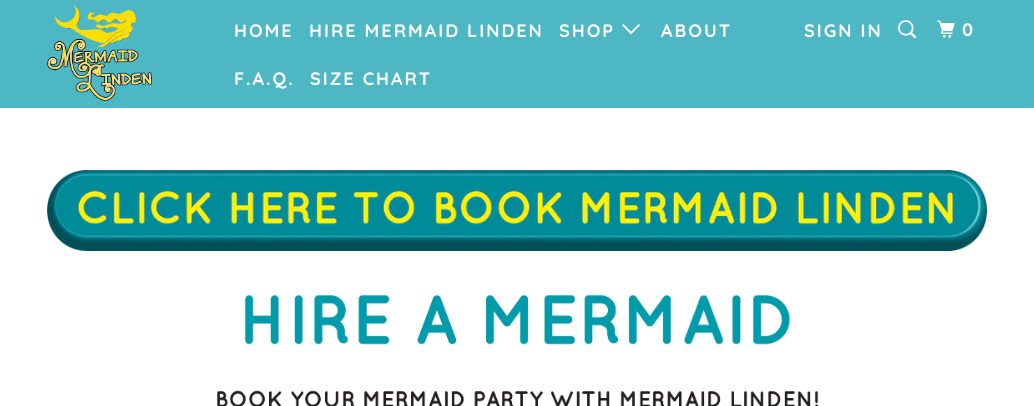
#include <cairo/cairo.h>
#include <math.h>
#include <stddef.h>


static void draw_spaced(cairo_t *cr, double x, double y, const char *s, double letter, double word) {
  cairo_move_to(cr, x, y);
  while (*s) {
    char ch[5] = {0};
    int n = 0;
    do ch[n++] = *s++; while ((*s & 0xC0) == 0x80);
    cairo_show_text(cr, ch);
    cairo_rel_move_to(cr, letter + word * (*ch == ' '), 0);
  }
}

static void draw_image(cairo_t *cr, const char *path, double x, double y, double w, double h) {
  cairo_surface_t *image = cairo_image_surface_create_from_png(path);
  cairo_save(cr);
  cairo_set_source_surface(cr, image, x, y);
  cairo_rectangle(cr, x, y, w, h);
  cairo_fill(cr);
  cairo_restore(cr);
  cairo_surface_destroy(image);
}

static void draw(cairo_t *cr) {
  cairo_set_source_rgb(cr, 1, 1, 1);
  cairo_paint(cr);
  cairo_set_source_rgb(cr, 77 / 255.0, 184 / 255.0, 196 / 255.0);
  cairo_rectangle(cr, 0, 0, 1034, 108);
  cairo_fill(cr);
  draw_image(cr, "images/1.png", 47, 5, 105, 96);
  draw_image(cr, "images/2.png", 622, 24, 18, 11);
  draw_image(cr, "images/3.png", 898, 20, 18, 19);
  draw_image(cr, "images/4.png", 937, 20, 18, 18);
  draw_image(cr, "images/5.png", 47, 170, 940, 81);
  draw_image(cr, "images/6.png", 217, 294, 602, 112);
  cairo_select_font_face(cr, "Quicksand", CAIRO_FONT_SLANT_NORMAL, CAIRO_FONT_WEIGHT_BOLD);
  cairo_set_font_size(cr, 18);
  cairo_set_source_rgb(cr, 1, 1, 1);
  draw_spaced(cr, 234, 37, "HOME", 2, 0);
  draw_spaced(cr, 309, 37, "HIRE MERMAID LINDEN", 2, 0);
  draw_spaced(cr, 559, 37, "SHOP", 2, 0);
  draw_spaced(cr, 661, 37, "ABOUT", 2, 0);
  draw_spaced(cr, 234, 85, "F.A.Q.", 2, 0);
  draw_spaced(cr, 310, 85, "SIZE CHART", 2, 0);
  draw_spaced(cr, 804, 37, "SIGN IN", 2, 0);
  draw_spaced(cr, 962, 36, "0", 2, 0);
}

int main(void) {
  cairo_surface_t *surface = cairo_image_surface_create(CAIRO_FORMAT_RGB24, 1034, 406);
  cairo_t *cr = cairo_create(surface);
  cairo_font_options_t *options = cairo_font_options_create();
  cairo_font_options_set_hint_metrics(options, CAIRO_HINT_METRICS_OFF);
  cairo_font_options_set_hint_style(options, CAIRO_HINT_STYLE_NONE);
  cairo_set_font_options(cr, options);
  cairo_set_miter_limit(cr, 4);
  draw(cr);
  cairo_surface_write_to_png(surface, "out.png");
  cairo_font_options_destroy(options);
  cairo_destroy(cr);
  cairo_surface_destroy(surface);
  return 0;
}
